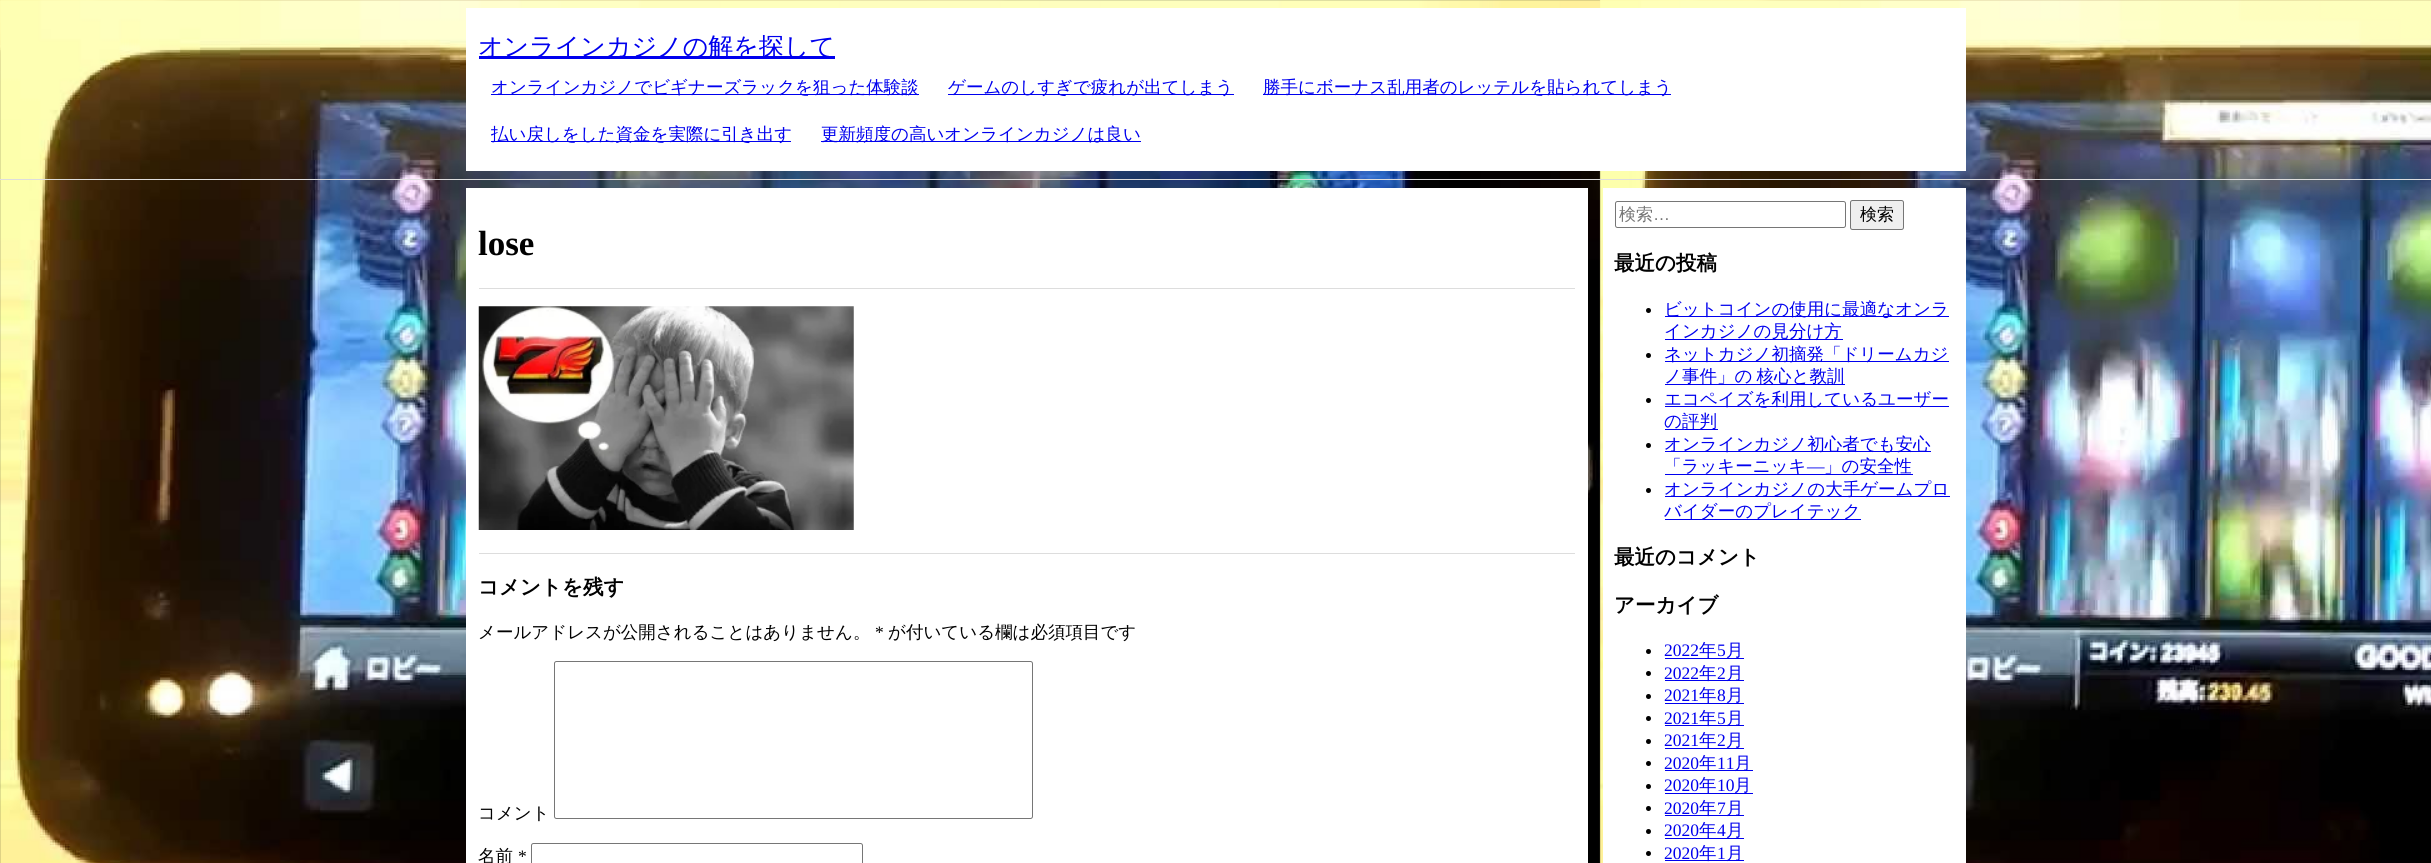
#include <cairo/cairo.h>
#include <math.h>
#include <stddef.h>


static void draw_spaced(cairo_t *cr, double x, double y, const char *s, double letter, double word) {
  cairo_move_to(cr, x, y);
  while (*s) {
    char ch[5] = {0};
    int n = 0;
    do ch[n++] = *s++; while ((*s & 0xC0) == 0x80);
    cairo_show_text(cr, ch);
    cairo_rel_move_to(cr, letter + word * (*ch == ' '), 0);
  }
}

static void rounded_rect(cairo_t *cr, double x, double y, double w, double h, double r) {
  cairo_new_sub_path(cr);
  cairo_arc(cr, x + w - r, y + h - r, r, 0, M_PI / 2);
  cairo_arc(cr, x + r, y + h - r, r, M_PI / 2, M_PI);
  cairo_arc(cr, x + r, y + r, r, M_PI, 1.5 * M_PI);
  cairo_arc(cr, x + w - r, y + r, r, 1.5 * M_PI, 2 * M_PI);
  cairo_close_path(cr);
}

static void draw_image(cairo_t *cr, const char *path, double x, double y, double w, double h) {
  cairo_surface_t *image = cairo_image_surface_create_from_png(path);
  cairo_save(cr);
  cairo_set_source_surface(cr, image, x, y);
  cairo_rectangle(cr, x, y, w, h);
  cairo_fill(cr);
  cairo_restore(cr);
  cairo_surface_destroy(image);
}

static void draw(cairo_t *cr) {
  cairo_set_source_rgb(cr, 1, 1, 1);
  cairo_paint(cr);
  draw_image(cr, "images/1.png", 0, 0, 2431, 863);
  cairo_set_source_rgb(cr, 221 / 255.0, 221 / 255.0, 221 / 255.0);
  cairo_rectangle(cr, 0, 179, 2431, 1);
  cairo_fill(cr);
  cairo_set_source_rgb(cr, 1, 1, 1);
  cairo_rectangle(cr, 466, 8, 1500, 163);
  cairo_fill(cr);
  cairo_set_source_rgb(cr, 0, 0, 238 / 255.0);
  cairo_rectangle(cr, 479, 56, 356, 3);
  cairo_fill(cr);
  cairo_rectangle(cr, 491, 94, 428, 1);
  cairo_fill(cr);
  cairo_rectangle(cr, 948, 94, 286, 1);
  cairo_fill(cr);
  cairo_rectangle(cr, 1263, 94, 408, 1);
  cairo_fill(cr);
  cairo_rectangle(cr, 491, 141, 300, 1);
  cairo_fill(cr);
  cairo_rectangle(cr, 821, 141, 320, 1);
  cairo_fill(cr);
  cairo_set_source_rgb(cr, 1, 1, 1);
  cairo_rectangle(cr, 466, 188, 1122, 675);
  cairo_fill(cr);
  cairo_set_source_rgb(cr, 221 / 255.0, 221 / 255.0, 221 / 255.0);
  cairo_rectangle(cr, 479, 553, 1096, 1);
  cairo_fill(cr);
  cairo_rectangle(cr, 479, 288, 1096, 1);
  cairo_fill(cr);
  draw_image(cr, "images/2.png", 478, 306, 376, 224);
  rounded_rect(cr, 554.5, 661.5, 478, 157, 2);
  cairo_set_source_rgb(cr, 118 / 255.0, 118 / 255.0, 118 / 255.0);
  cairo_set_line_width(cr, 1);
  cairo_stroke(cr);
  rounded_rect(cr, 531.5, 843.5, 331, 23, 2);
  cairo_stroke(cr);
  cairo_set_source_rgb(cr, 1, 1, 1);
  cairo_rectangle(cr, 1603, 188, 363, 675);
  cairo_fill(cr);
  rounded_rect(cr, 1615.5, 201.5, 230, 26, 2);
  cairo_set_source_rgb(cr, 118 / 255.0, 118 / 255.0, 118 / 255.0);
  cairo_stroke(cr);
  cairo_set_source_rgb(cr, 239 / 255.0, 239 / 255.0, 239 / 255.0);
  rounded_rect(cr, 1850.5, 200.5, 53, 29, 2);
  cairo_fill_preserve(cr);
  cairo_set_source_rgb(cr, 118 / 255.0, 118 / 255.0, 118 / 255.0);
  cairo_stroke(cr);
  cairo_set_source_rgb(cr, 0, 0, 0);
  cairo_arc(cr, 1648.5, 310.5, 2.5, 0, 2 * M_PI);
  cairo_fill(cr);
  cairo_set_source_rgb(cr, 0, 0, 238 / 255.0);
  cairo_rectangle(cr, 1665, 316, 284, 1);
  cairo_fill(cr);
  cairo_rectangle(cr, 1665, 339, 178, 1);
  cairo_fill(cr);
  cairo_set_source_rgb(cr, 0, 0, 0);
  cairo_arc(cr, 1648.5, 355.5, 2.5, 0, 2 * M_PI);
  cairo_fill(cr);
  cairo_set_source_rgb(cr, 0, 0, 238 / 255.0);
  cairo_rectangle(cr, 1665, 361, 284, 1);
  cairo_fill(cr);
  cairo_rectangle(cr, 1665, 384, 180, 1);
  cairo_fill(cr);
  cairo_set_source_rgb(cr, 0, 0, 0);
  cairo_arc(cr, 1648.5, 400.5, 2.5, 0, 2 * M_PI);
  cairo_fill(cr);
  cairo_set_source_rgb(cr, 0, 0, 238 / 255.0);
  cairo_rectangle(cr, 1665, 406, 284, 1);
  cairo_fill(cr);
  cairo_rectangle(cr, 1665, 429, 53, 1);
  cairo_fill(cr);
  cairo_set_source_rgb(cr, 0, 0, 0);
  cairo_arc(cr, 1648.5, 445.5, 2.5, 0, 2 * M_PI);
  cairo_fill(cr);
  cairo_set_source_rgb(cr, 0, 0, 238 / 255.0);
  cairo_rectangle(cr, 1665, 451, 266, 1);
  cairo_fill(cr);
  cairo_rectangle(cr, 1665, 474, 248, 1);
  cairo_fill(cr);
  cairo_set_source_rgb(cr, 0, 0, 0);
  cairo_arc(cr, 1648.5, 490.5, 2.5, 0, 2 * M_PI);
  cairo_fill(cr);
  cairo_set_source_rgb(cr, 0, 0, 238 / 255.0);
  cairo_rectangle(cr, 1665, 496, 285, 1);
  cairo_fill(cr);
  cairo_rectangle(cr, 1665, 519, 196, 1);
  cairo_fill(cr);
  cairo_set_source_rgb(cr, 0, 0, 0);
  cairo_arc(cr, 1648.5, 651.5, 2.5, 0, 2 * M_PI);
  cairo_fill(cr);
  cairo_set_source_rgb(cr, 0, 0, 238 / 255.0);
  cairo_rectangle(cr, 1665, 658, 79, 1);
  cairo_fill(cr);
  cairo_set_source_rgb(cr, 0, 0, 0);
  cairo_arc(cr, 1648.5, 673.5, 2.5, 0, 2 * M_PI);
  cairo_fill(cr);
  cairo_set_source_rgb(cr, 0, 0, 238 / 255.0);
  cairo_rectangle(cr, 1665, 680, 79, 1);
  cairo_fill(cr);
  cairo_set_source_rgb(cr, 0, 0, 0);
  cairo_arc(cr, 1648.5, 696.5, 2.5, 0, 2 * M_PI);
  cairo_fill(cr);
  cairo_set_source_rgb(cr, 0, 0, 238 / 255.0);
  cairo_rectangle(cr, 1665, 703, 79, 1);
  cairo_fill(cr);
  cairo_set_source_rgb(cr, 0, 0, 0);
  cairo_arc(cr, 1648.5, 718.5, 2.5, 0, 2 * M_PI);
  cairo_fill(cr);
  cairo_set_source_rgb(cr, 0, 0, 238 / 255.0);
  cairo_rectangle(cr, 1665, 725, 79, 1);
  cairo_fill(cr);
  cairo_set_source_rgb(cr, 0, 0, 0);
  cairo_arc(cr, 1648.5, 741.5, 2.5, 0, 2 * M_PI);
  cairo_fill(cr);
  cairo_set_source_rgb(cr, 0, 0, 238 / 255.0);
  cairo_rectangle(cr, 1665, 748, 79, 1);
  cairo_fill(cr);
  cairo_set_source_rgb(cr, 0, 0, 0);
  cairo_arc(cr, 1648.5, 763.5, 2.5, 0, 2 * M_PI);
  cairo_fill(cr);
  cairo_set_source_rgb(cr, 0, 0, 238 / 255.0);
  cairo_rectangle(cr, 1665, 770, 88, 1);
  cairo_fill(cr);
  cairo_set_source_rgb(cr, 0, 0, 0);
  cairo_arc(cr, 1648.5, 786.5, 2.5, 0, 2 * M_PI);
  cairo_fill(cr);
  cairo_set_source_rgb(cr, 0, 0, 238 / 255.0);
  cairo_rectangle(cr, 1665, 793, 88, 1);
  cairo_fill(cr);
  cairo_set_source_rgb(cr, 0, 0, 0);
  cairo_arc(cr, 1648.5, 808.5, 2.5, 0, 2 * M_PI);
  cairo_fill(cr);
  cairo_set_source_rgb(cr, 0, 0, 238 / 255.0);
  cairo_rectangle(cr, 1665, 815, 79, 1);
  cairo_fill(cr);
  cairo_set_source_rgb(cr, 0, 0, 0);
  cairo_arc(cr, 1648.5, 831.5, 2.5, 0, 2 * M_PI);
  cairo_fill(cr);
  cairo_set_source_rgb(cr, 0, 0, 238 / 255.0);
  cairo_rectangle(cr, 1665, 838, 79, 1);
  cairo_fill(cr);
  cairo_set_source_rgb(cr, 0, 0, 0);
  cairo_arc(cr, 1648.5, 853.5, 2.5, 0, 2 * M_PI);
  cairo_fill(cr);
  cairo_set_source_rgb(cr, 0, 0, 238 / 255.0);
  cairo_rectangle(cr, 1665, 860, 79, 1);
  cairo_fill(cr);
  cairo_select_font_face(cr, "WenQuanYi Zen Hei Medium", CAIRO_FONT_SLANT_NORMAL, CAIRO_FONT_WEIGHT_NORMAL);
  cairo_set_font_size(cr, 25);
  cairo_move_to(cr, 478, 55);
  cairo_show_text(cr, "オンラインカジノの解を探して");
  cairo_set_font_size(cr, 17.5);
  cairo_move_to(cr, 491, 93);
  cairo_show_text(cr, "オンラインカジノでビギナーズラックを狙った体験談");
  cairo_move_to(cr, 948, 93);
  cairo_show_text(cr, "ゲームのしすぎで疲れが出てしまう");
  cairo_move_to(cr, 1263, 93);
  cairo_show_text(cr, "勝手にボーナス乱用者のレッテルを貼られてしまう");
  cairo_move_to(cr, 491, 140);
  cairo_show_text(cr, "払い戻しをした資金を実際に引き出す");
  cairo_move_to(cr, 821, 140);
  cairo_show_text(cr, "更新頻度の高いオンラインカジノは良い");
  cairo_select_font_face(cr, "Liberation Serif", CAIRO_FONT_SLANT_NORMAL, CAIRO_FONT_WEIGHT_BOLD);
  cairo_set_font_size(cr, 35);
  cairo_set_source_rgb(cr, 0, 0, 0);
  cairo_move_to(cr, 478, 255);
  cairo_show_text(cr, "lose");
  cairo_select_font_face(cr, "WenQuanYi Zen Hei", CAIRO_FONT_SLANT_NORMAL, CAIRO_FONT_WEIGHT_BOLD);
  cairo_set_font_size(cr, 20.5);
  cairo_move_to(cr, 478, 594);
  cairo_show_text(cr, "コメントを残す");
  cairo_select_font_face(cr, "WenQuanYi Zen Hei Medium", CAIRO_FONT_SLANT_NORMAL, CAIRO_FONT_WEIGHT_NORMAL);
  cairo_set_font_size(cr, 17.5);
  cairo_move_to(cr, 478, 638);
  cairo_show_text(cr, "メールアドレスが公開されることはありません。");
  cairo_select_font_face(cr, "Liberation Serif", CAIRO_FONT_SLANT_NORMAL, CAIRO_FONT_WEIGHT_NORMAL);
  cairo_move_to(cr, 875, 638);
  cairo_show_text(cr, "*");
  cairo_select_font_face(cr, "WenQuanYi Zen Hei Medium", CAIRO_FONT_SLANT_NORMAL, CAIRO_FONT_WEIGHT_NORMAL);
  cairo_move_to(cr, 888, 638);
  cairo_show_text(cr, "が付いている欄は必須項目です");
  cairo_move_to(cr, 478, 819);
  cairo_show_text(cr, "コメント");
  cairo_move_to(cr, 478, 862);
  cairo_show_text(cr, "名前");
  cairo_select_font_face(cr, "Liberation Serif", CAIRO_FONT_SLANT_NORMAL, CAIRO_FONT_WEIGHT_NORMAL);
  cairo_move_to(cr, 518, 862);
  cairo_show_text(cr, "*");
  cairo_select_font_face(cr, "WenQuanYi Zen Hei Medium", CAIRO_FONT_SLANT_NORMAL, CAIRO_FONT_WEIGHT_NORMAL);
  cairo_set_font_size(cr, 17);
  cairo_set_source_rgb(cr, 117 / 255.0, 117 / 255.0, 117 / 255.0);
  cairo_move_to(cr, 1619, 220);
  cairo_show_text(cr, "検索");
  cairo_select_font_face(cr, "Liberation Sans", CAIRO_FONT_SLANT_NORMAL, CAIRO_FONT_WEIGHT_NORMAL);
  cairo_move_to(cr, 1653, 220);
  cairo_show_text(cr, "…");
  cairo_select_font_face(cr, "WenQuanYi Zen Hei Medium", CAIRO_FONT_SLANT_NORMAL, CAIRO_FONT_WEIGHT_NORMAL);
  cairo_set_source_rgb(cr, 0, 0, 0);
  cairo_move_to(cr, 1860, 220);
  cairo_show_text(cr, "検索");
  cairo_select_font_face(cr, "WenQuanYi Zen Hei", CAIRO_FONT_SLANT_NORMAL, CAIRO_FONT_WEIGHT_BOLD);
  cairo_set_font_size(cr, 20.5);
  cairo_move_to(cr, 1614, 270);
  cairo_show_text(cr, "最近の投稿");
  cairo_select_font_face(cr, "WenQuanYi Zen Hei Medium", CAIRO_FONT_SLANT_NORMAL, CAIRO_FONT_WEIGHT_NORMAL);
  cairo_set_font_size(cr, 17.5);
  cairo_set_source_rgb(cr, 0, 0, 238 / 255.0);
  cairo_move_to(cr, 1664, 315);
  cairo_show_text(cr, "ビットコインの使用に最適なオンラ");
  cairo_move_to(cr, 1664, 337);
  cairo_show_text(cr, "インカジノの見分け方");
  cairo_move_to(cr, 1664, 360);
  cairo_show_text(cr, "ネットカジノ初摘発「ドリームカジ");
  draw_spaced(cr, 1664, 382, "ノ事件」の 核心と教訓", 0, -1);
  cairo_move_to(cr, 1664, 405);
  cairo_show_text(cr, "エコペイズを利用しているユーザー");
  cairo_move_to(cr, 1664, 427);
  cairo_show_text(cr, "の評判");
  cairo_move_to(cr, 1664, 450);
  cairo_show_text(cr, "オンラインカジノ初心者でも安心");
  cairo_move_to(cr, 1664, 472);
  cairo_show_text(cr, "「ラッキーニッキ");
  cairo_select_font_face(cr, "Liberation Serif", CAIRO_FONT_SLANT_NORMAL, CAIRO_FONT_WEIGHT_NORMAL);
  cairo_move_to(cr, 1807, 472);
  cairo_show_text(cr, "―");
  cairo_select_font_face(cr, "WenQuanYi Zen Hei Medium", CAIRO_FONT_SLANT_NORMAL, CAIRO_FONT_WEIGHT_NORMAL);
  cairo_move_to(cr, 1824, 472);
  cairo_show_text(cr, "」の安全性");
  cairo_move_to(cr, 1664, 495);
  cairo_show_text(cr, "オンラインカジノの大手ゲームプロ");
  cairo_move_to(cr, 1664, 517);
  cairo_show_text(cr, "バイダーのプレイテック");
  cairo_select_font_face(cr, "WenQuanYi Zen Hei", CAIRO_FONT_SLANT_NORMAL, CAIRO_FONT_WEIGHT_BOLD);
  cairo_set_font_size(cr, 20.5);
  cairo_set_source_rgb(cr, 0, 0, 0);
  cairo_move_to(cr, 1614, 564);
  cairo_show_text(cr, "最近のコメント");
  cairo_move_to(cr, 1614, 612);
  cairo_show_text(cr, "アーカイブ");
  cairo_select_font_face(cr, "Liberation Serif", CAIRO_FONT_SLANT_NORMAL, CAIRO_FONT_WEIGHT_NORMAL);
  cairo_set_font_size(cr, 17.5);
  cairo_set_source_rgb(cr, 0, 0, 238 / 255.0);
  cairo_move_to(cr, 1664, 656);
  cairo_show_text(cr, "2022");
  cairo_select_font_face(cr, "WenQuanYi Zen Hei Medium", CAIRO_FONT_SLANT_NORMAL, CAIRO_FONT_WEIGHT_NORMAL);
  cairo_move_to(cr, 1699, 656);
  cairo_show_text(cr, "年");
  cairo_select_font_face(cr, "Liberation Serif", CAIRO_FONT_SLANT_NORMAL, CAIRO_FONT_WEIGHT_NORMAL);
  cairo_move_to(cr, 1717, 656);
  cairo_show_text(cr, "5");
  cairo_select_font_face(cr, "WenQuanYi Zen Hei Medium", CAIRO_FONT_SLANT_NORMAL, CAIRO_FONT_WEIGHT_NORMAL);
  cairo_move_to(cr, 1726, 656);
  cairo_show_text(cr, "月");
  cairo_select_font_face(cr, "Liberation Serif", CAIRO_FONT_SLANT_NORMAL, CAIRO_FONT_WEIGHT_NORMAL);
  cairo_move_to(cr, 1664, 679);
  cairo_show_text(cr, "2022");
  cairo_select_font_face(cr, "WenQuanYi Zen Hei Medium", CAIRO_FONT_SLANT_NORMAL, CAIRO_FONT_WEIGHT_NORMAL);
  cairo_move_to(cr, 1699, 679);
  cairo_show_text(cr, "年");
  cairo_select_font_face(cr, "Liberation Serif", CAIRO_FONT_SLANT_NORMAL, CAIRO_FONT_WEIGHT_NORMAL);
  cairo_move_to(cr, 1717, 679);
  cairo_show_text(cr, "2");
  cairo_select_font_face(cr, "WenQuanYi Zen Hei Medium", CAIRO_FONT_SLANT_NORMAL, CAIRO_FONT_WEIGHT_NORMAL);
  cairo_move_to(cr, 1726, 679);
  cairo_show_text(cr, "月");
  cairo_select_font_face(cr, "Liberation Serif", CAIRO_FONT_SLANT_NORMAL, CAIRO_FONT_WEIGHT_NORMAL);
  cairo_move_to(cr, 1664, 701);
  cairo_show_text(cr, "2021");
  cairo_select_font_face(cr, "WenQuanYi Zen Hei Medium", CAIRO_FONT_SLANT_NORMAL, CAIRO_FONT_WEIGHT_NORMAL);
  cairo_move_to(cr, 1699, 701);
  cairo_show_text(cr, "年");
  cairo_select_font_face(cr, "Liberation Serif", CAIRO_FONT_SLANT_NORMAL, CAIRO_FONT_WEIGHT_NORMAL);
  cairo_move_to(cr, 1717, 701);
  cairo_show_text(cr, "8");
  cairo_select_font_face(cr, "WenQuanYi Zen Hei Medium", CAIRO_FONT_SLANT_NORMAL, CAIRO_FONT_WEIGHT_NORMAL);
  cairo_move_to(cr, 1726, 701);
  cairo_show_text(cr, "月");
  cairo_select_font_face(cr, "Liberation Serif", CAIRO_FONT_SLANT_NORMAL, CAIRO_FONT_WEIGHT_NORMAL);
  cairo_move_to(cr, 1664, 724);
  cairo_show_text(cr, "2021");
  cairo_select_font_face(cr, "WenQuanYi Zen Hei Medium", CAIRO_FONT_SLANT_NORMAL, CAIRO_FONT_WEIGHT_NORMAL);
  cairo_move_to(cr, 1699, 724);
  cairo_show_text(cr, "年");
  cairo_select_font_face(cr, "Liberation Serif", CAIRO_FONT_SLANT_NORMAL, CAIRO_FONT_WEIGHT_NORMAL);
  cairo_move_to(cr, 1717, 724);
  cairo_show_text(cr, "5");
  cairo_select_font_face(cr, "WenQuanYi Zen Hei Medium", CAIRO_FONT_SLANT_NORMAL, CAIRO_FONT_WEIGHT_NORMAL);
  cairo_move_to(cr, 1726, 724);
  cairo_show_text(cr, "月");
  cairo_select_font_face(cr, "Liberation Serif", CAIRO_FONT_SLANT_NORMAL, CAIRO_FONT_WEIGHT_NORMAL);
  cairo_move_to(cr, 1664, 746);
  cairo_show_text(cr, "2021");
  cairo_select_font_face(cr, "WenQuanYi Zen Hei Medium", CAIRO_FONT_SLANT_NORMAL, CAIRO_FONT_WEIGHT_NORMAL);
  cairo_move_to(cr, 1699, 746);
  cairo_show_text(cr, "年");
  cairo_select_font_face(cr, "Liberation Serif", CAIRO_FONT_SLANT_NORMAL, CAIRO_FONT_WEIGHT_NORMAL);
  cairo_move_to(cr, 1717, 746);
  cairo_show_text(cr, "2");
  cairo_select_font_face(cr, "WenQuanYi Zen Hei Medium", CAIRO_FONT_SLANT_NORMAL, CAIRO_FONT_WEIGHT_NORMAL);
  cairo_move_to(cr, 1726, 746);
  cairo_show_text(cr, "月");
  cairo_select_font_face(cr, "Liberation Serif", CAIRO_FONT_SLANT_NORMAL, CAIRO_FONT_WEIGHT_NORMAL);
  cairo_move_to(cr, 1664, 769);
  cairo_show_text(cr, "2020");
  cairo_select_font_face(cr, "WenQuanYi Zen Hei Medium", CAIRO_FONT_SLANT_NORMAL, CAIRO_FONT_WEIGHT_NORMAL);
  cairo_move_to(cr, 1699, 769);
  cairo_show_text(cr, "年");
  cairo_select_font_face(cr, "Liberation Serif", CAIRO_FONT_SLANT_NORMAL, CAIRO_FONT_WEIGHT_NORMAL);
  cairo_move_to(cr, 1717, 769);
  cairo_show_text(cr, "11");
  cairo_select_font_face(cr, "WenQuanYi Zen Hei Medium", CAIRO_FONT_SLANT_NORMAL, CAIRO_FONT_WEIGHT_NORMAL);
  cairo_move_to(cr, 1734, 769);
  cairo_show_text(cr, "月");
  cairo_select_font_face(cr, "Liberation Serif", CAIRO_FONT_SLANT_NORMAL, CAIRO_FONT_WEIGHT_NORMAL);
  cairo_move_to(cr, 1664, 791);
  cairo_show_text(cr, "2020");
  cairo_select_font_face(cr, "WenQuanYi Zen Hei Medium", CAIRO_FONT_SLANT_NORMAL, CAIRO_FONT_WEIGHT_NORMAL);
  cairo_move_to(cr, 1699, 791);
  cairo_show_text(cr, "年");
  cairo_select_font_face(cr, "Liberation Serif", CAIRO_FONT_SLANT_NORMAL, CAIRO_FONT_WEIGHT_NORMAL);
  cairo_move_to(cr, 1717, 791);
  cairo_show_text(cr, "10");
  cairo_select_font_face(cr, "WenQuanYi Zen Hei Medium", CAIRO_FONT_SLANT_NORMAL, CAIRO_FONT_WEIGHT_NORMAL);
  cairo_move_to(cr, 1734, 791);
  cairo_show_text(cr, "月");
  cairo_select_font_face(cr, "Liberation Serif", CAIRO_FONT_SLANT_NORMAL, CAIRO_FONT_WEIGHT_NORMAL);
  cairo_move_to(cr, 1664, 814);
  cairo_show_text(cr, "2020");
  cairo_select_font_face(cr, "WenQuanYi Zen Hei Medium", CAIRO_FONT_SLANT_NORMAL, CAIRO_FONT_WEIGHT_NORMAL);
  cairo_move_to(cr, 1699, 814);
  cairo_show_text(cr, "年");
  cairo_select_font_face(cr, "Liberation Serif", CAIRO_FONT_SLANT_NORMAL, CAIRO_FONT_WEIGHT_NORMAL);
  cairo_move_to(cr, 1717, 814);
  cairo_show_text(cr, "7");
  cairo_select_font_face(cr, "WenQuanYi Zen Hei Medium", CAIRO_FONT_SLANT_NORMAL, CAIRO_FONT_WEIGHT_NORMAL);
  cairo_move_to(cr, 1726, 814);
  cairo_show_text(cr, "月");
  cairo_select_font_face(cr, "Liberation Serif", CAIRO_FONT_SLANT_NORMAL, CAIRO_FONT_WEIGHT_NORMAL);
  cairo_move_to(cr, 1664, 836);
  cairo_show_text(cr, "2020");
  cairo_select_font_face(cr, "WenQuanYi Zen Hei Medium", CAIRO_FONT_SLANT_NORMAL, CAIRO_FONT_WEIGHT_NORMAL);
  cairo_move_to(cr, 1699, 836);
  cairo_show_text(cr, "年");
  cairo_select_font_face(cr, "Liberation Serif", CAIRO_FONT_SLANT_NORMAL, CAIRO_FONT_WEIGHT_NORMAL);
  cairo_move_to(cr, 1717, 836);
  cairo_show_text(cr, "4");
  cairo_select_font_face(cr, "WenQuanYi Zen Hei Medium", CAIRO_FONT_SLANT_NORMAL, CAIRO_FONT_WEIGHT_NORMAL);
  cairo_move_to(cr, 1726, 836);
  cairo_show_text(cr, "月");
  cairo_select_font_face(cr, "Liberation Serif", CAIRO_FONT_SLANT_NORMAL, CAIRO_FONT_WEIGHT_NORMAL);
  cairo_move_to(cr, 1664, 859);
  cairo_show_text(cr, "2020");
  cairo_select_font_face(cr, "WenQuanYi Zen Hei Medium", CAIRO_FONT_SLANT_NORMAL, CAIRO_FONT_WEIGHT_NORMAL);
  cairo_move_to(cr, 1699, 859);
  cairo_show_text(cr, "年");
  cairo_select_font_face(cr, "Liberation Serif", CAIRO_FONT_SLANT_NORMAL, CAIRO_FONT_WEIGHT_NORMAL);
  cairo_move_to(cr, 1717, 859);
  cairo_show_text(cr, "1");
  cairo_select_font_face(cr, "WenQuanYi Zen Hei Medium", CAIRO_FONT_SLANT_NORMAL, CAIRO_FONT_WEIGHT_NORMAL);
  cairo_move_to(cr, 1726, 859);
  cairo_show_text(cr, "月");
}

int main(void) {
  cairo_surface_t *surface = cairo_image_surface_create(CAIRO_FORMAT_RGB24, 2431, 863);
  cairo_t *cr = cairo_create(surface);
  cairo_font_options_t *options = cairo_font_options_create();
  cairo_font_options_set_hint_metrics(options, CAIRO_HINT_METRICS_OFF);
  cairo_font_options_set_hint_style(options, CAIRO_HINT_STYLE_NONE);
  cairo_set_font_options(cr, options);
  cairo_set_miter_limit(cr, 4);
  draw(cr);
  cairo_surface_write_to_png(surface, "out.png");
  cairo_font_options_destroy(options);
  cairo_destroy(cr);
  cairo_surface_destroy(surface);
  return 0;
}
